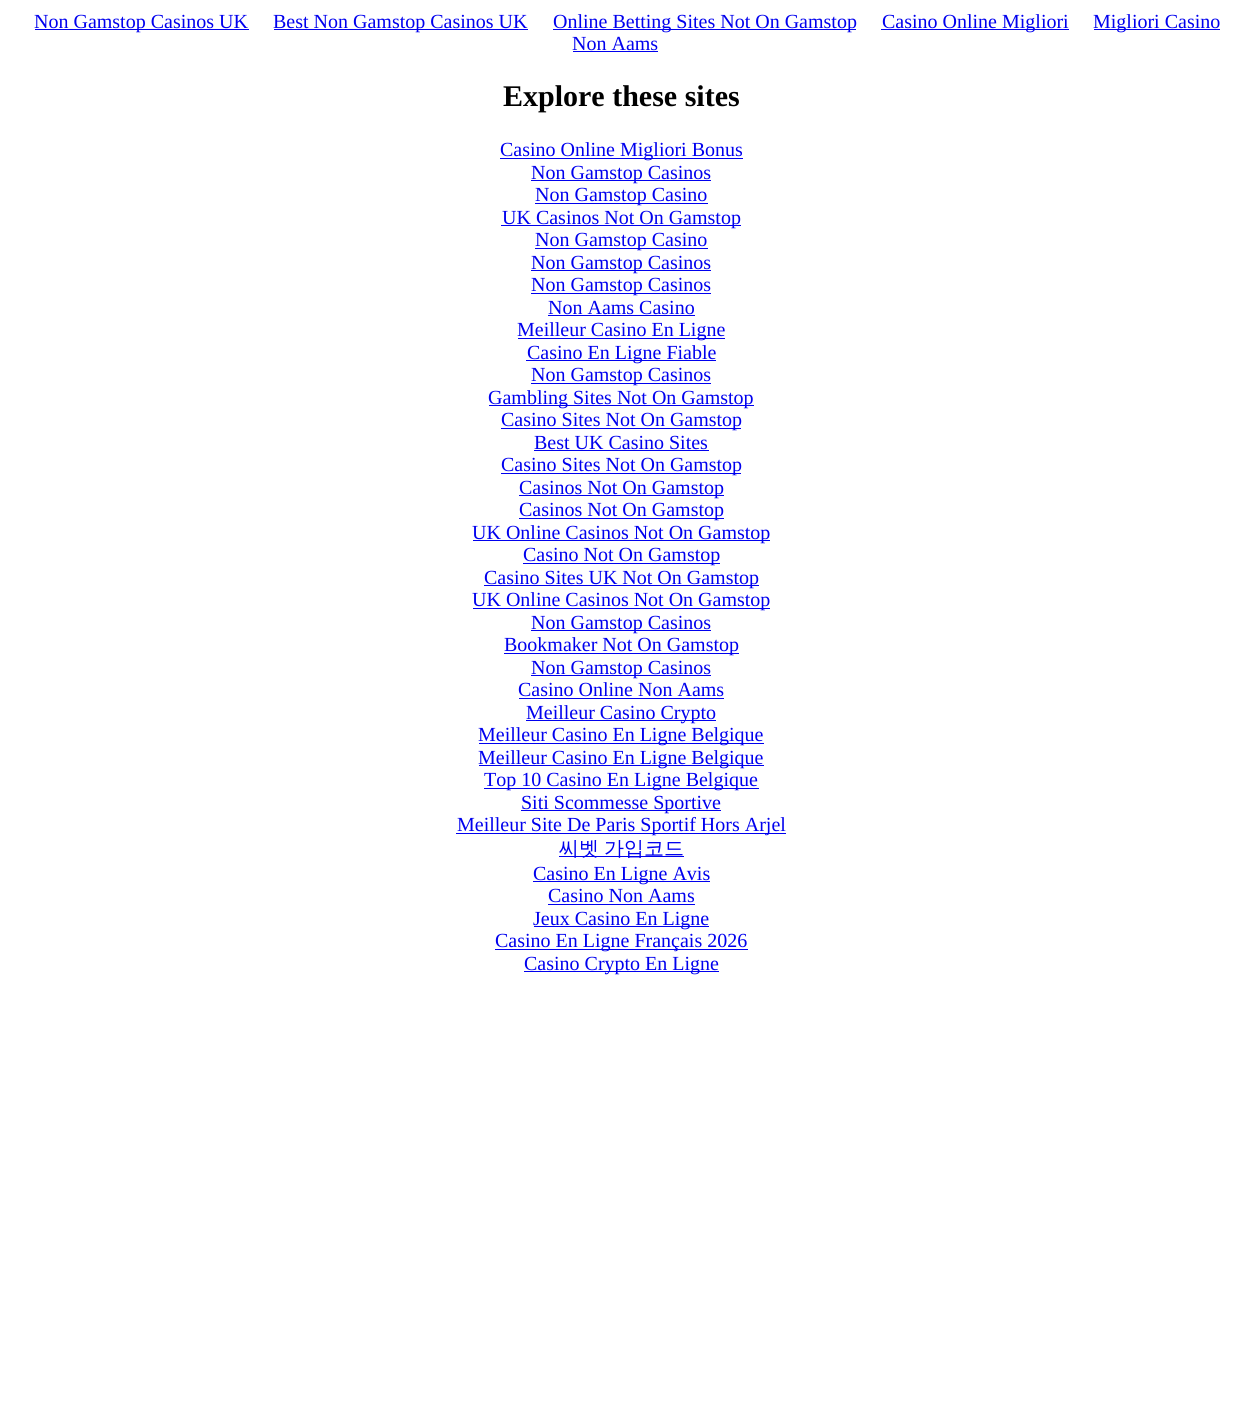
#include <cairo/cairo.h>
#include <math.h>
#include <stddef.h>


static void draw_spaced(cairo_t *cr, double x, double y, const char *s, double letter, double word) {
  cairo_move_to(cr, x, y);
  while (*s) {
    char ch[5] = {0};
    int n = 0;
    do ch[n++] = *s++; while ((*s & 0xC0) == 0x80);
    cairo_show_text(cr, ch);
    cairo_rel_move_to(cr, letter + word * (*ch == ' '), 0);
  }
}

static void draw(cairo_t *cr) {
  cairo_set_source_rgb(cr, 1, 1, 1);
  cairo_paint(cr);
  cairo_set_source_rgb(cr, 0, 0, 238 / 255.0);
  cairo_rectangle(cr, 35, 29, 214, 1);
  cairo_fill(cr);
  cairo_rectangle(cr, 274, 29, 254, 1);
  cairo_fill(cr);
  cairo_rectangle(cr, 553, 29, 303, 1);
  cairo_fill(cr);
  cairo_rectangle(cr, 881, 29, 188, 1);
  cairo_fill(cr);
  cairo_rectangle(cr, 1094, 29, 126, 1);
  cairo_fill(cr);
  cairo_rectangle(cr, 573, 51, 85, 1);
  cairo_fill(cr);
  cairo_rectangle(cr, 500, 158, 243, 1);
  cairo_fill(cr);
  cairo_rectangle(cr, 531, 180, 180, 1);
  cairo_fill(cr);
  cairo_rectangle(cr, 535, 203, 173, 1);
  cairo_fill(cr);
  cairo_rectangle(cr, 501, 225, 240, 1);
  cairo_fill(cr);
  cairo_rectangle(cr, 535, 248, 173, 1);
  cairo_fill(cr);
  cairo_rectangle(cr, 531, 270, 180, 1);
  cairo_fill(cr);
  cairo_rectangle(cr, 531, 293, 180, 1);
  cairo_fill(cr);
  cairo_rectangle(cr, 548, 315, 147, 1);
  cairo_fill(cr);
  cairo_rectangle(cr, 518, 338, 207, 1);
  cairo_fill(cr);
  cairo_rectangle(cr, 526, 360, 190, 1);
  cairo_fill(cr);
  cairo_rectangle(cr, 531, 383, 180, 1);
  cairo_fill(cr);
  cairo_rectangle(cr, 489, 405, 265, 1);
  cairo_fill(cr);
  cairo_rectangle(cr, 501, 428, 240, 1);
  cairo_fill(cr);
  cairo_rectangle(cr, 534, 450, 175, 1);
  cairo_fill(cr);
  cairo_rectangle(cr, 501, 473, 240, 1);
  cairo_fill(cr);
  cairo_rectangle(cr, 519, 495, 205, 1);
  cairo_fill(cr);
  cairo_rectangle(cr, 519, 518, 205, 1);
  cairo_fill(cr);
  cairo_rectangle(cr, 473, 540, 297, 1);
  cairo_fill(cr);
  cairo_rectangle(cr, 523, 563, 197, 1);
  cairo_fill(cr);
  cairo_rectangle(cr, 484, 585, 275, 1);
  cairo_fill(cr);
  cairo_rectangle(cr, 473, 608, 297, 1);
  cairo_fill(cr);
  cairo_rectangle(cr, 531, 630, 180, 1);
  cairo_fill(cr);
  cairo_rectangle(cr, 504, 653, 235, 1);
  cairo_fill(cr);
  cairo_rectangle(cr, 531, 675, 180, 1);
  cairo_fill(cr);
  cairo_rectangle(cr, 519, 698, 205, 1);
  cairo_fill(cr);
  cairo_rectangle(cr, 526, 720, 190, 1);
  cairo_fill(cr);
  cairo_rectangle(cr, 479, 743, 285, 1);
  cairo_fill(cr);
  cairo_rectangle(cr, 479, 765, 285, 1);
  cairo_fill(cr);
  cairo_rectangle(cr, 484, 788, 275, 1);
  cairo_fill(cr);
  cairo_rectangle(cr, 521, 810, 200, 1);
  cairo_fill(cr);
  cairo_rectangle(cr, 456, 833, 330, 1);
  cairo_fill(cr);
  cairo_rectangle(cr, 559, 856, 125, 1);
  cairo_fill(cr);
  cairo_rectangle(cr, 533, 881, 177, 1);
  cairo_fill(cr);
  cairo_rectangle(cr, 548, 904, 147, 1);
  cairo_fill(cr);
  cairo_rectangle(cr, 534, 926, 175, 1);
  cairo_fill(cr);
  cairo_rectangle(cr, 495, 949, 253, 1);
  cairo_fill(cr);
  cairo_rectangle(cr, 524, 971, 195, 1);
  cairo_fill(cr);
  cairo_select_font_face(cr, "Liberation Serif", CAIRO_FONT_SLANT_NORMAL, CAIRO_FONT_WEIGHT_NORMAL);
  cairo_set_font_size(cr, 20);
  cairo_move_to(cr, 34, 28);
  cairo_show_text(cr, "Non Gamstop Casinos UK");
  cairo_move_to(cr, 273, 28);
  cairo_show_text(cr, "Best Non Gamstop Casinos UK");
  cairo_move_to(cr, 553, 28);
  cairo_show_text(cr, "Online Betting Sites Not On Gamstop");
  cairo_move_to(cr, 882, 28);
  cairo_show_text(cr, "Casino Online Migliori");
  cairo_move_to(cr, 1093, 28);
  cairo_show_text(cr, "Migliori Casino");
  cairo_move_to(cr, 572, 50);
  cairo_show_text(cr, "Non Aams");
  cairo_select_font_face(cr, "Liberation Serif", CAIRO_FONT_SLANT_NORMAL, CAIRO_FONT_WEIGHT_BOLD);
  cairo_set_font_size(cr, 30);
  cairo_set_source_rgb(cr, 0, 0, 0);
  cairo_move_to(cr, 503, 106);
  cairo_show_text(cr, "Explore these sites");
  cairo_select_font_face(cr, "Liberation Serif", CAIRO_FONT_SLANT_NORMAL, CAIRO_FONT_WEIGHT_NORMAL);
  cairo_set_font_size(cr, 20);
  cairo_set_source_rgb(cr, 0, 0, 238 / 255.0);
  cairo_move_to(cr, 500, 156);
  cairo_show_text(cr, "Casino Online Migliori Bonus");
  cairo_move_to(cr, 531, 179);
  cairo_show_text(cr, "Non Gamstop Casinos");
  cairo_move_to(cr, 535, 201);
  cairo_show_text(cr, "Non Gamstop Casino");
  cairo_move_to(cr, 502, 224);
  cairo_show_text(cr, "UK Casinos Not On Gamstop");
  cairo_move_to(cr, 535, 246);
  cairo_show_text(cr, "Non Gamstop Casino");
  cairo_move_to(cr, 531, 269);
  cairo_show_text(cr, "Non Gamstop Casinos");
  cairo_move_to(cr, 531, 291);
  cairo_show_text(cr, "Non Gamstop Casinos");
  cairo_move_to(cr, 548, 314);
  cairo_show_text(cr, "Non Aams Casino");
  cairo_move_to(cr, 517, 336);
  cairo_show_text(cr, "Meilleur Casino En Ligne");
  cairo_move_to(cr, 527, 359);
  cairo_show_text(cr, "Casino En Ligne Fiable");
  cairo_move_to(cr, 531, 381);
  cairo_show_text(cr, "Non Gamstop Casinos");
  cairo_move_to(cr, 488, 404);
  cairo_show_text(cr, "Gambling Sites Not On Gamstop");
  cairo_move_to(cr, 501, 426);
  cairo_show_text(cr, "Casino Sites Not On Gamstop");
  cairo_move_to(cr, 534, 449);
  cairo_show_text(cr, "Best UK Casino Sites");
  cairo_move_to(cr, 501, 471);
  cairo_show_text(cr, "Casino Sites Not On Gamstop");
  cairo_move_to(cr, 519, 494);
  cairo_show_text(cr, "Casinos Not On Gamstop");
  cairo_move_to(cr, 519, 516);
  cairo_show_text(cr, "Casinos Not On Gamstop");
  cairo_move_to(cr, 472, 539);
  cairo_show_text(cr, "UK Online Casinos Not On Gamstop");
  cairo_move_to(cr, 523, 561);
  cairo_show_text(cr, "Casino Not On Gamstop");
  cairo_move_to(cr, 484, 584);
  cairo_show_text(cr, "Casino Sites UK Not On Gamstop");
  cairo_move_to(cr, 472, 606);
  cairo_show_text(cr, "UK Online Casinos Not On Gamstop");
  cairo_move_to(cr, 531, 629);
  cairo_show_text(cr, "Non Gamstop Casinos");
  cairo_move_to(cr, 504, 651);
  cairo_show_text(cr, "Bookmaker Not On Gamstop");
  cairo_move_to(cr, 531, 674);
  cairo_show_text(cr, "Non Gamstop Casinos");
  cairo_move_to(cr, 518, 696);
  cairo_show_text(cr, "Casino Online Non Aams");
  cairo_move_to(cr, 526, 719);
  cairo_show_text(cr, "Meilleur Casino Crypto");
  cairo_move_to(cr, 478, 741);
  cairo_show_text(cr, "Meilleur Casino En Ligne Belgique");
  cairo_move_to(cr, 478, 764);
  cairo_show_text(cr, "Meilleur Casino En Ligne Belgique");
  cairo_move_to(cr, 484, 786);
  cairo_show_text(cr, "Top 10 Casino En Ligne Belgique");
  cairo_move_to(cr, 521, 809);
  cairo_show_text(cr, "Siti Scommesse Sportive");
  cairo_move_to(cr, 457, 831);
  cairo_show_text(cr, "Meilleur Site De Paris Sportif Hors Arjel");
  cairo_select_font_face(cr, "WenQuanYi Zen Hei Medium", CAIRO_FONT_SLANT_NORMAL, CAIRO_FONT_WEIGHT_NORMAL);
  draw_spaced(cr, 559, 855, "씨벳 가입코드", 0, -1);
  cairo_select_font_face(cr, "Liberation Serif", CAIRO_FONT_SLANT_NORMAL, CAIRO_FONT_WEIGHT_NORMAL);
  cairo_move_to(cr, 533, 880);
  cairo_show_text(cr, "Casino En Ligne Avis");
  cairo_move_to(cr, 548, 902);
  cairo_show_text(cr, "Casino Non Aams");
  cairo_move_to(cr, 533, 925);
  cairo_show_text(cr, "Jeux Casino En Ligne");
  cairo_move_to(cr, 495, 947);
  cairo_show_text(cr, "Casino En Ligne Français 2026");
  cairo_move_to(cr, 524, 970);
  cairo_show_text(cr, "Casino Crypto En Ligne");
}

int main(void) {
  cairo_surface_t *surface = cairo_image_surface_create(CAIRO_FORMAT_RGB24, 1242, 1423);
  cairo_t *cr = cairo_create(surface);
  cairo_font_options_t *options = cairo_font_options_create();
  cairo_font_options_set_hint_metrics(options, CAIRO_HINT_METRICS_OFF);
  cairo_font_options_set_hint_style(options, CAIRO_HINT_STYLE_NONE);
  cairo_set_font_options(cr, options);
  cairo_set_miter_limit(cr, 4);
  draw(cr);
  cairo_surface_write_to_png(surface, "out.png");
  cairo_font_options_destroy(options);
  cairo_destroy(cr);
  cairo_surface_destroy(surface);
  return 0;
}
